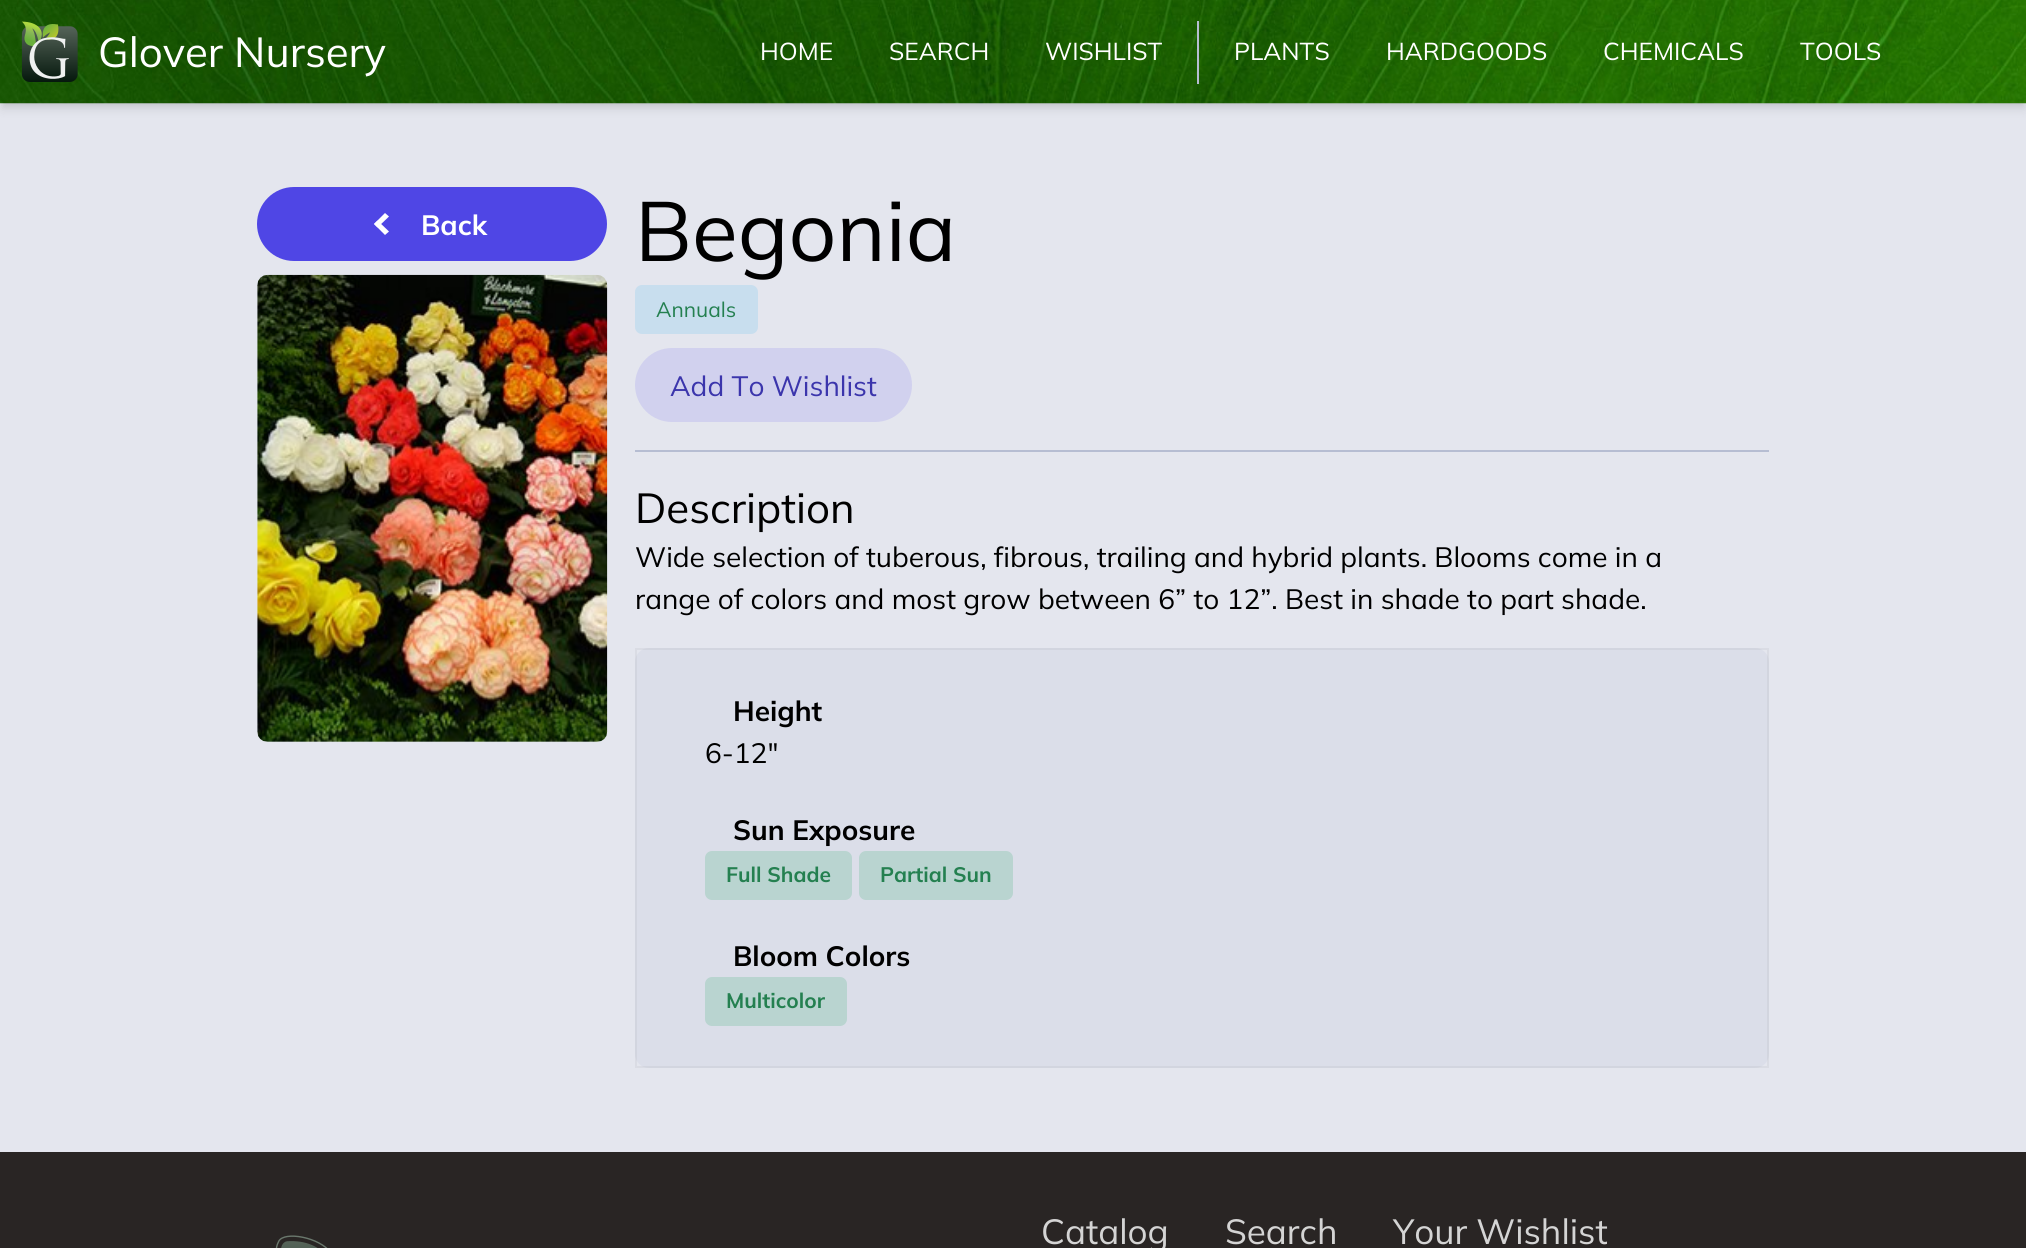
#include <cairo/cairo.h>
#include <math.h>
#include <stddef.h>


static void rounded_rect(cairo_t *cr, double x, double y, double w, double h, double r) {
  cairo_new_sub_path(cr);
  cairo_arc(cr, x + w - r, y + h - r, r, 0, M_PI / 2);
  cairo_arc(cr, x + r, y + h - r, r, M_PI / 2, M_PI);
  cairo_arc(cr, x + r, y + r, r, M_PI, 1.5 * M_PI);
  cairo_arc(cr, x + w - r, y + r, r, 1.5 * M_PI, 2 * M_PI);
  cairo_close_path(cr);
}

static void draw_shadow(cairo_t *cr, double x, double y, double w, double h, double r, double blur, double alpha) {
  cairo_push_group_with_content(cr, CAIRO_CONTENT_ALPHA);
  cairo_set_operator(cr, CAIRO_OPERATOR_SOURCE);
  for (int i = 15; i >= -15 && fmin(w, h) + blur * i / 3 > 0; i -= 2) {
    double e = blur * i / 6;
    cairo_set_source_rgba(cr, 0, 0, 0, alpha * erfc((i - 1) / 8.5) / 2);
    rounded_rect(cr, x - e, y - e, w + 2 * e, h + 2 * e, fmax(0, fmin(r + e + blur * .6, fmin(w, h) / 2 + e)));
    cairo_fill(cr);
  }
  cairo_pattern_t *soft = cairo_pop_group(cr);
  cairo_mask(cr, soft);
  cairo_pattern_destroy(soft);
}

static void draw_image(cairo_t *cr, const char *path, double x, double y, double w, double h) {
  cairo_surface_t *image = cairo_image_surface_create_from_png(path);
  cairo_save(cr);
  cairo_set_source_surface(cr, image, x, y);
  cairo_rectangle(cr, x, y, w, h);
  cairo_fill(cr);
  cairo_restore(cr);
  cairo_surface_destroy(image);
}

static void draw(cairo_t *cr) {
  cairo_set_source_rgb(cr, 228 / 255.0, 230 / 255.0, 238 / 255.0);
  cairo_paint(cr);
  cairo_set_source_rgb(cr, 0, 0, 0);
  draw_shadow(cr, 4, 7, 2019, 96, 0, 3.5, 0.1);
  draw_shadow(cr, 2, 9, 2023, 100, 0, 5, 0.1);
  draw_image(cr, "images/1.png", 0, 0, 2026, 104);
  draw_image(cr, "images/2.png", 21, 21, 57, 61);
  cairo_set_source_rgb(cr, 182 / 255.0, 189 / 255.0, 210 / 255.0);
  cairo_rectangle(cr, 1197, 21, 2, 63);
  cairo_fill(cr);
  cairo_set_source_rgb(cr, 79 / 255.0, 70 / 255.0, 229 / 255.0);
  rounded_rect(cr, 257, 187, 350, 74, 37);
  cairo_fill(cr);
  cairo_set_source_rgb(cr, 1, 1, 1);
  cairo_new_path(cr);
  cairo_move_to(cr, 389, 231.5);
  cairo_line_to(cr, 385, 235);
  cairo_line_to(cr, 374, 224);
  cairo_line_to(cr, 377.5, 220.5);
  cairo_close_path(cr);
  cairo_fill(cr);
  cairo_new_path(cr);
  cairo_move_to(cr, 389, 216.5);
  cairo_line_to(cr, 377.5, 227.5);
  cairo_line_to(cr, 374, 224);
  cairo_line_to(cr, 385, 213);
  cairo_close_path(cr);
  cairo_fill(cr);
  draw_image(cr, "images/3.png", 257, 274, 351, 468);
  cairo_set_source_rgb(cr, 200 / 255.0, 222 / 255.0, 238 / 255.0);
  rounded_rect(cr, 635, 285, 123, 49, 7);
  cairo_fill(cr);
  cairo_set_source_rgb(cr, 209 / 255.0, 209 / 255.0, 238 / 255.0);
  rounded_rect(cr, 635, 348, 277, 74, 37);
  cairo_fill(cr);
  cairo_set_source_rgb(cr, 182 / 255.0, 189 / 255.0, 210 / 255.0);
  cairo_rectangle(cr, 635, 450, 1134, 2);
  cairo_fill(cr);
  cairo_set_source_rgb(cr, 219 / 255.0, 222 / 255.0, 233 / 255.0);
  rounded_rect(cr, 635, 648, 1134, 420, 14);
  cairo_fill(cr);
  cairo_rectangle(cr, 636, 649, 1132, 418);
  cairo_set_source_rgba(cr, 23 / 255.0, 23 / 255.0, 23 / 255.0, 0.05);
  cairo_stroke(cr);
  cairo_set_source_rgb(cr, 185 / 255.0, 212 / 255.0, 208 / 255.0);
  rounded_rect(cr, 705, 851, 147, 49, 7);
  cairo_fill(cr);
  rounded_rect(cr, 859, 851, 154, 49, 7);
  cairo_fill(cr);
  rounded_rect(cr, 705, 977, 142, 49, 7);
  cairo_fill(cr);
  cairo_set_source_rgb(cr, 41 / 255.0, 37 / 255.0, 36 / 255.0);
  cairo_rectangle(cr, 0, 1152, 2026, 96);
  cairo_fill(cr);
  draw_image(cr, "images/4.png", 275, 1235, 53, 13);
  cairo_select_font_face(cr, "Mulish ExtraLight", CAIRO_FONT_SLANT_NORMAL, CAIRO_FONT_WEIGHT_NORMAL);
  cairo_set_font_size(cr, 42);
  cairo_set_source_rgb(cr, 1, 1, 1);
  cairo_move_to(cr, 98, 67);
  cairo_show_text(cr, "Glover Nursery");
  cairo_set_font_size(cr, 24.5);
  cairo_move_to(cr, 760, 60);
  cairo_show_text(cr, "HOME");
  cairo_move_to(cr, 889, 60);
  cairo_show_text(cr, "SEARCH");
  cairo_move_to(cr, 1045, 60);
  cairo_show_text(cr, "WISHLIST");
  cairo_move_to(cr, 1234, 60);
  cairo_show_text(cr, "PLANTS");
  cairo_move_to(cr, 1386, 60);
  cairo_show_text(cr, "HARDGOODS");
  cairo_move_to(cr, 1603, 60);
  cairo_show_text(cr, "CHEMICALS");
  cairo_move_to(cr, 1800, 60);
  cairo_show_text(cr, "TOOLS");
  cairo_select_font_face(cr, "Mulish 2 ExtraLight", CAIRO_FONT_SLANT_NORMAL, CAIRO_FONT_WEIGHT_NORMAL);
  cairo_set_font_size(cr, 28);
  cairo_move_to(cr, 421, 235);
  cairo_show_text(cr, "Back");
  cairo_select_font_face(cr, "Mulish ExtraLight", CAIRO_FONT_SLANT_NORMAL, CAIRO_FONT_WEIGHT_NORMAL);
  cairo_set_font_size(cr, 84);
  cairo_set_source_rgb(cr, 0, 0, 0);
  cairo_move_to(cr, 635, 261);
  cairo_show_text(cr, "Begonia");
  cairo_set_font_size(cr, 21);
  cairo_set_source_rgb(cr, 36 / 255.0, 128 / 255.0, 80 / 255.0);
  cairo_move_to(cr, 656, 317);
  cairo_show_text(cr, "Annuals");
  cairo_set_font_size(cr, 28);
  cairo_set_source_rgb(cr, 59 / 255.0, 53 / 255.0, 172 / 255.0);
  cairo_move_to(cr, 670, 396);
  cairo_show_text(cr, "Add To Wishlist");
  cairo_set_font_size(cr, 42);
  cairo_set_source_rgb(cr, 0, 0, 0);
  cairo_move_to(cr, 635, 523);
  cairo_show_text(cr, "Description");
  cairo_set_font_size(cr, 28);
  cairo_move_to(cr, 635, 567);
  cairo_show_text(cr, "Wide selection of tuberous, fibrous, trailing and hybrid plants. Blooms come in a");
  cairo_move_to(cr, 635, 609);
  cairo_show_text(cr, "range of colors and most grow between 6” to 12”. Best in shade to part shade.");
  cairo_select_font_face(cr, "Mulish 2 ExtraLight", CAIRO_FONT_SLANT_NORMAL, CAIRO_FONT_WEIGHT_NORMAL);
  cairo_move_to(cr, 733, 721);
  cairo_show_text(cr, "Height");
  cairo_select_font_face(cr, "Mulish ExtraLight", CAIRO_FONT_SLANT_NORMAL, CAIRO_FONT_WEIGHT_NORMAL);
  cairo_move_to(cr, 705, 763);
  cairo_show_text(cr, "6-12\"");
  cairo_select_font_face(cr, "Mulish 2 ExtraLight", CAIRO_FONT_SLANT_NORMAL, CAIRO_FONT_WEIGHT_NORMAL);
  cairo_move_to(cr, 733, 840);
  cairo_show_text(cr, "Sun Exposure");
  cairo_set_font_size(cr, 21);
  cairo_set_source_rgb(cr, 36 / 255.0, 128 / 255.0, 80 / 255.0);
  cairo_move_to(cr, 726, 882);
  cairo_show_text(cr, "Full Shade");
  cairo_move_to(cr, 880, 882);
  cairo_show_text(cr, "Partial Sun");
  cairo_set_font_size(cr, 28);
  cairo_set_source_rgb(cr, 0, 0, 0);
  cairo_move_to(cr, 733, 966);
  cairo_show_text(cr, "Bloom Colors");
  cairo_set_font_size(cr, 21);
  cairo_set_source_rgb(cr, 36 / 255.0, 128 / 255.0, 80 / 255.0);
  cairo_move_to(cr, 726, 1008);
  cairo_show_text(cr, "Multicolor");
  cairo_select_font_face(cr, "Mulish ExtraLight", CAIRO_FONT_SLANT_NORMAL, CAIRO_FONT_WEIGHT_NORMAL);
  cairo_set_font_size(cr, 35);
  cairo_set_source_rgb(cr, 212 / 255.0, 212 / 255.0, 212 / 255.0);
  cairo_move_to(cr, 1041, 1244);
  cairo_show_text(cr, "Catalog");
  cairo_move_to(cr, 1225, 1244);
  cairo_show_text(cr, "Search");
  cairo_move_to(cr, 1393, 1244);
  cairo_show_text(cr, "Your Wishlist");
}

int main(void) {
  cairo_surface_t *surface = cairo_image_surface_create(CAIRO_FORMAT_RGB24, 2026, 1248);
  cairo_t *cr = cairo_create(surface);
  cairo_font_options_t *options = cairo_font_options_create();
  cairo_font_options_set_hint_metrics(options, CAIRO_HINT_METRICS_OFF);
  cairo_font_options_set_hint_style(options, CAIRO_HINT_STYLE_NONE);
  cairo_set_font_options(cr, options);
  cairo_set_miter_limit(cr, 4);
  draw(cr);
  cairo_surface_write_to_png(surface, "out.png");
  cairo_font_options_destroy(options);
  cairo_destroy(cr);
  cairo_surface_destroy(surface);
  return 0;
}
